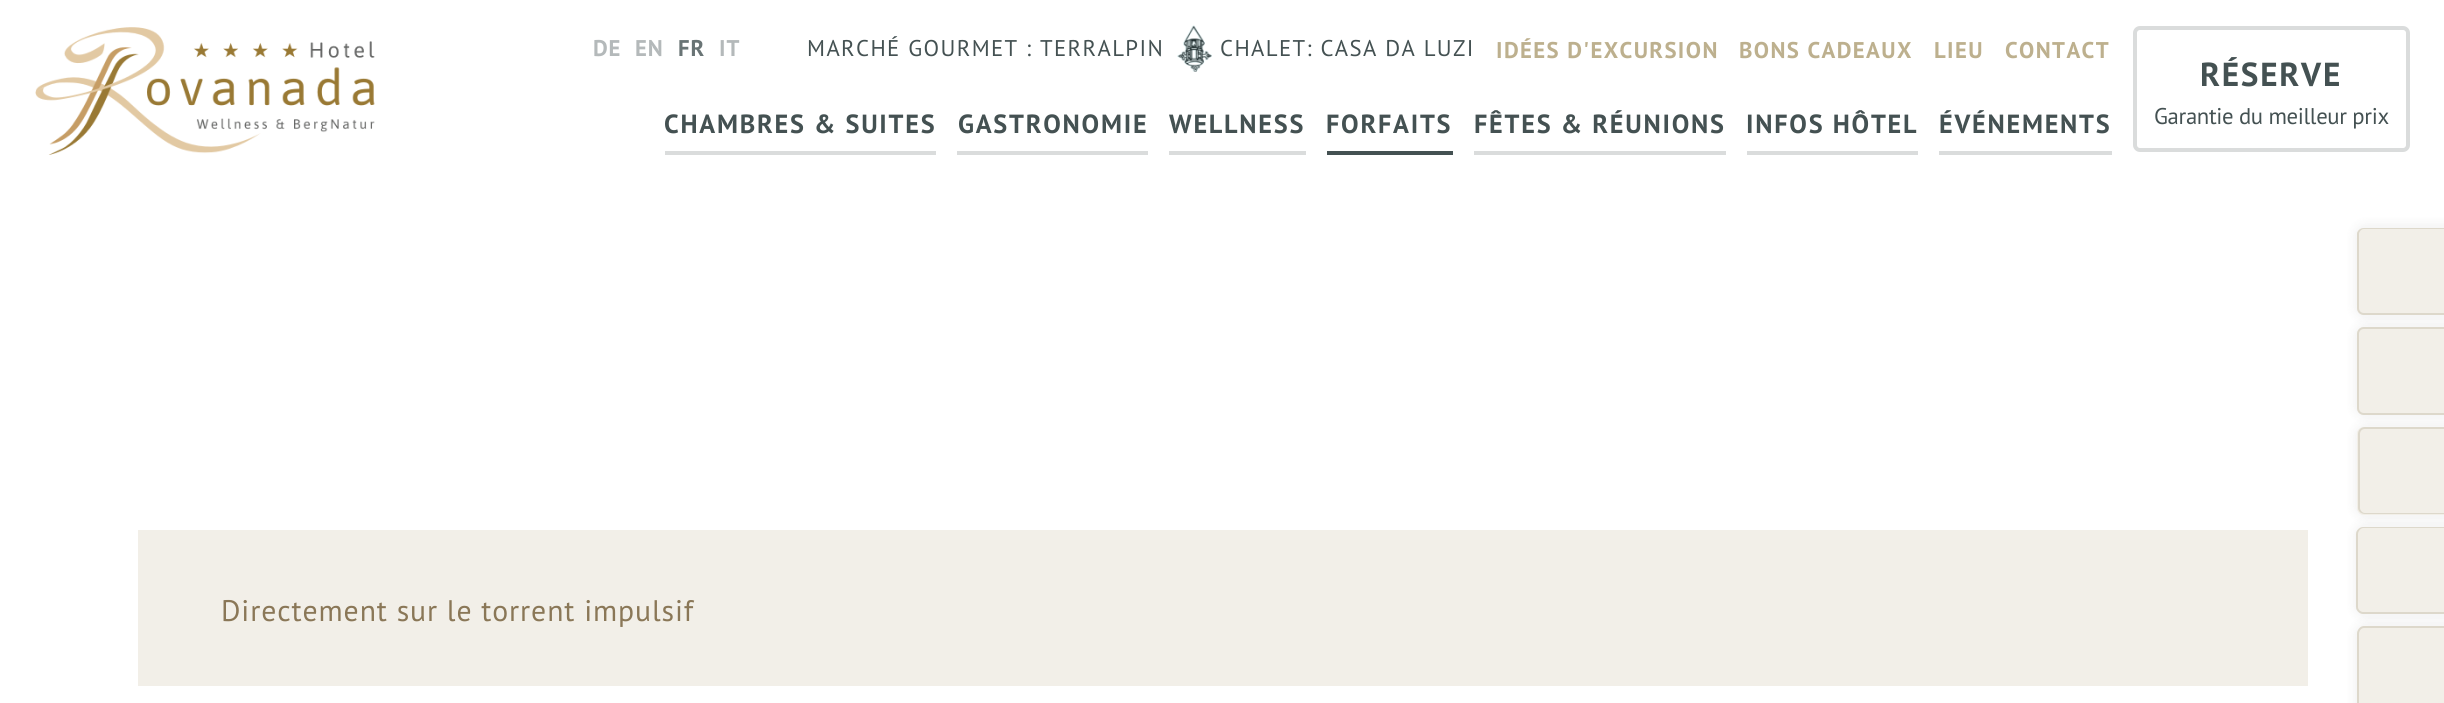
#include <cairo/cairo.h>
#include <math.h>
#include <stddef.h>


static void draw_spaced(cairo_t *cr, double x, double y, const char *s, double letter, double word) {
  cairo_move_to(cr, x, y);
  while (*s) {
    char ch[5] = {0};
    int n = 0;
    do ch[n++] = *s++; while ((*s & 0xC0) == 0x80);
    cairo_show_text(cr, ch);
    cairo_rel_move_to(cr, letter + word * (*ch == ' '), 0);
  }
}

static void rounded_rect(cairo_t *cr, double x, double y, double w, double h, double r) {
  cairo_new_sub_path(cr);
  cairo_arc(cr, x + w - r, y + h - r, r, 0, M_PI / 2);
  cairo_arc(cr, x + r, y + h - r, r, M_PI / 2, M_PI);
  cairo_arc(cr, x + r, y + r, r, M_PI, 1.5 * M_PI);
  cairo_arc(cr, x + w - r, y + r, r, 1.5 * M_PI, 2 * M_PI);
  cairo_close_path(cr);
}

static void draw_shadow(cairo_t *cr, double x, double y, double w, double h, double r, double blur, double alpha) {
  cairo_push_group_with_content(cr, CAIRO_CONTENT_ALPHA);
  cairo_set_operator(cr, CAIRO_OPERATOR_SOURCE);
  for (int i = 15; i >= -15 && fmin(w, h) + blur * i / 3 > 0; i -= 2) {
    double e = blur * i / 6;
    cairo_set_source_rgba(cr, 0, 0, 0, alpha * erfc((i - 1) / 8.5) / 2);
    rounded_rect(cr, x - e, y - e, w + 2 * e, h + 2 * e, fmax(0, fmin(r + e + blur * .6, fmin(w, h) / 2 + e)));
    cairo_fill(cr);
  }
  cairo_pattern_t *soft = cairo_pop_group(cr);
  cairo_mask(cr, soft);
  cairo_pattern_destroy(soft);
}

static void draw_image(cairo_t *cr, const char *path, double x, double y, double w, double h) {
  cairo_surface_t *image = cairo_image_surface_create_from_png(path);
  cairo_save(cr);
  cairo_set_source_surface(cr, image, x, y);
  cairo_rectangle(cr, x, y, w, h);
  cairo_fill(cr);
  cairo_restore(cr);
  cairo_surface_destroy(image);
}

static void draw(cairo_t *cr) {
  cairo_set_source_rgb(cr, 1, 1, 1);
  cairo_paint(cr);
  draw_image(cr, "images/1.png", 35, 27, 340, 128);
  draw_image(cr, "images/2.png", 1177, 25, 35, 47);
  cairo_set_source_rgb(cr, 218 / 255.0, 220 / 255.0, 220 / 255.0);
  cairo_rectangle(cr, 665, 151, 271, 4);
  cairo_fill(cr);
  cairo_rectangle(cr, 957, 151, 191, 4);
  cairo_fill(cr);
  cairo_rectangle(cr, 1169, 151, 137, 4);
  cairo_fill(cr);
  cairo_set_source_rgb(cr, 68 / 255.0, 81 / 255.0, 82 / 255.0);
  cairo_rectangle(cr, 1327, 151, 126, 4);
  cairo_fill(cr);
  cairo_set_source_rgb(cr, 218 / 255.0, 220 / 255.0, 220 / 255.0);
  cairo_rectangle(cr, 1474, 151, 252, 4);
  cairo_fill(cr);
  cairo_rectangle(cr, 1747, 151, 171, 4);
  cairo_fill(cr);
  cairo_rectangle(cr, 1939, 151, 173, 4);
  cairo_fill(cr);
  rounded_rect(cr, 2135, 28, 273, 122, 5);
  cairo_set_line_width(cr, 4);
  cairo_stroke(cr);
  cairo_set_source_rgb(cr, 242 / 255.0, 239 / 255.0, 232 / 255.0);
  cairo_rectangle(cr, 138, 530, 2170, 156);
  cairo_fill(cr);
  cairo_set_source_rgb(cr, 0, 0, 0);
  draw_shadow(cr, 2354, 224, 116, 95, 11, 5, 0.05);
  cairo_set_source_rgb(cr, 242 / 255.0, 239 / 255.0, 232 / 255.0);
  cairo_new_path(cr);
  cairo_move_to(cr, 2364, 228);
  cairo_line_to(cr, 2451, 228);
  cairo_line_to(cr, 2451, 315);
  cairo_line_to(cr, 2364, 315);
  cairo_curve_to(cr, 2360, 315, 2357, 312, 2357, 308);
  cairo_line_to(cr, 2357, 235);
  cairo_curve_to(cr, 2357, 231, 2360, 228, 2364, 228);
  cairo_close_path(cr);
  cairo_fill(cr);
  cairo_set_source_rgb(cr, 221 / 255.0, 216 / 255.0, 203 / 255.0);
  cairo_set_fill_rule(cr, CAIRO_FILL_RULE_EVEN_ODD);
  cairo_new_path(cr);
  cairo_move_to(cr, 2364, 228);
  cairo_line_to(cr, 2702, 228);
  cairo_line_to(cr, 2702, 315);
  cairo_line_to(cr, 2364, 315);
  cairo_curve_to(cr, 2360, 315, 2357, 312, 2357, 308);
  cairo_line_to(cr, 2357, 234);
  cairo_curve_to(cr, 2357, 231, 2360, 228, 2364, 228);
  cairo_close_path(cr);
  cairo_move_to(cr, 2364, 229);
  cairo_line_to(cr, 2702, 229);
  cairo_line_to(cr, 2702, 313);
  cairo_line_to(cr, 2364, 313);
  cairo_curve_to(cr, 2361, 313, 2359, 311, 2359, 308);
  cairo_line_to(cr, 2359, 234);
  cairo_curve_to(cr, 2359, 232, 2361, 229, 2364, 229);
  cairo_close_path(cr);
  cairo_fill(cr);
  cairo_set_source_rgb(cr, 0, 0, 0);
  draw_shadow(cr, 2354, 324, 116, 94, 11, 5, 0.05);
  cairo_set_source_rgb(cr, 242 / 255.0, 239 / 255.0, 232 / 255.0);
  cairo_new_path(cr);
  cairo_move_to(cr, 2364, 327);
  cairo_line_to(cr, 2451, 327);
  cairo_line_to(cr, 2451, 415);
  cairo_line_to(cr, 2364, 415);
  cairo_curve_to(cr, 2360, 415, 2357, 412, 2357, 408);
  cairo_line_to(cr, 2357, 334);
  cairo_curve_to(cr, 2357, 330, 2360, 327, 2364, 327);
  cairo_close_path(cr);
  cairo_fill(cr);
  cairo_set_source_rgb(cr, 221 / 255.0, 216 / 255.0, 203 / 255.0);
  cairo_new_path(cr);
  cairo_move_to(cr, 2364, 327);
  cairo_line_to(cr, 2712, 327);
  cairo_line_to(cr, 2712, 415);
  cairo_line_to(cr, 2364, 415);
  cairo_curve_to(cr, 2360, 415, 2357, 412, 2357, 408);
  cairo_line_to(cr, 2357, 334);
  cairo_curve_to(cr, 2357, 330, 2360, 327, 2364, 327);
  cairo_close_path(cr);
  cairo_move_to(cr, 2364, 329);
  cairo_line_to(cr, 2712, 329);
  cairo_line_to(cr, 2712, 413);
  cairo_line_to(cr, 2364, 413);
  cairo_curve_to(cr, 2361, 413, 2359, 411, 2359, 408);
  cairo_line_to(cr, 2359, 334);
  cairo_curve_to(cr, 2359, 331, 2361, 329, 2364, 329);
  cairo_close_path(cr);
  cairo_fill(cr);
  cairo_set_source_rgb(cr, 0, 0, 0);
  draw_shadow(cr, 2354, 424, 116, 94, 11, 5, 0.05);
  cairo_set_source_rgb(cr, 242 / 255.0, 239 / 255.0, 232 / 255.0);
  cairo_new_path(cr);
  cairo_move_to(cr, 2364, 427);
  cairo_line_to(cr, 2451, 427);
  cairo_line_to(cr, 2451, 515);
  cairo_line_to(cr, 2364, 515);
  cairo_curve_to(cr, 2360, 515, 2357, 512, 2357, 508);
  cairo_line_to(cr, 2357, 434);
  cairo_curve_to(cr, 2357, 430, 2360, 427, 2364, 427);
  cairo_close_path(cr);
  cairo_fill(cr);
  cairo_set_source_rgb(cr, 221 / 255.0, 216 / 255.0, 203 / 255.0);
  cairo_new_path(cr);
  cairo_move_to(cr, 2365, 427);
  cairo_line_to(cr, 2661, 427);
  cairo_line_to(cr, 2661, 514);
  cairo_line_to(cr, 2365, 514);
  cairo_curve_to(cr, 2361, 514, 2358, 511, 2358, 508);
  cairo_line_to(cr, 2358, 434);
  cairo_curve_to(cr, 2358, 430, 2361, 427, 2365, 427);
  cairo_close_path(cr);
  cairo_move_to(cr, 2365, 429);
  cairo_line_to(cr, 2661, 429);
  cairo_line_to(cr, 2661, 513);
  cairo_line_to(cr, 2365, 513);
  cairo_curve_to(cr, 2362, 513, 2360, 510, 2360, 508);
  cairo_line_to(cr, 2360, 434);
  cairo_curve_to(cr, 2360, 431, 2362, 429, 2365, 429);
  cairo_close_path(cr);
  cairo_fill(cr);
  cairo_set_source_rgb(cr, 0, 0, 0);
  draw_shadow(cr, 2354, 523, 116, 95, 11, 5, 0.05);
  cairo_set_source_rgb(cr, 242 / 255.0, 239 / 255.0, 232 / 255.0);
  cairo_new_path(cr);
  cairo_move_to(cr, 2364, 527);
  cairo_line_to(cr, 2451, 527);
  cairo_line_to(cr, 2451, 614);
  cairo_line_to(cr, 2364, 614);
  cairo_curve_to(cr, 2360, 614, 2357, 611, 2357, 607);
  cairo_line_to(cr, 2357, 534);
  cairo_curve_to(cr, 2357, 530, 2360, 527, 2364, 527);
  cairo_close_path(cr);
  cairo_fill(cr);
  cairo_set_source_rgb(cr, 221 / 255.0, 216 / 255.0, 203 / 255.0);
  cairo_new_path(cr);
  cairo_move_to(cr, 2363, 527);
  cairo_line_to(cr, 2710, 527);
  cairo_line_to(cr, 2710, 614);
  cairo_line_to(cr, 2363, 614);
  cairo_curve_to(cr, 2360, 614, 2356, 611, 2356, 607);
  cairo_line_to(cr, 2356, 534);
  cairo_curve_to(cr, 2356, 530, 2360, 527, 2363, 527);
  cairo_close_path(cr);
  cairo_move_to(cr, 2363, 528);
  cairo_line_to(cr, 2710, 528);
  cairo_line_to(cr, 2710, 612);
  cairo_line_to(cr, 2363, 612);
  cairo_curve_to(cr, 2361, 612, 2358, 610, 2358, 607);
  cairo_line_to(cr, 2358, 534);
  cairo_curve_to(cr, 2358, 531, 2361, 528, 2363, 528);
  cairo_close_path(cr);
  cairo_fill(cr);
  cairo_set_source_rgb(cr, 0, 0, 0);
  draw_shadow(cr, 2354, 623, 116, 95, 11, 5, 0.05);
  cairo_set_source_rgb(cr, 242 / 255.0, 239 / 255.0, 232 / 255.0);
  cairo_new_path(cr);
  cairo_move_to(cr, 2364, 627);
  cairo_line_to(cr, 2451, 627);
  cairo_line_to(cr, 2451, 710);
  cairo_line_to(cr, 2364, 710);
  cairo_curve_to(cr, 2360, 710, 2357, 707, 2357, 703);
  cairo_line_to(cr, 2357, 634);
  cairo_curve_to(cr, 2357, 630, 2360, 627, 2364, 627);
  cairo_close_path(cr);
  cairo_fill(cr);
  cairo_set_source_rgb(cr, 221 / 255.0, 216 / 255.0, 203 / 255.0);
  cairo_new_path(cr);
  cairo_move_to(cr, 2364, 626);
  cairo_line_to(cr, 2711, 626);
  cairo_line_to(cr, 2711, 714);
  cairo_line_to(cr, 2364, 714);
  cairo_curve_to(cr, 2360, 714, 2357, 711, 2357, 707);
  cairo_line_to(cr, 2357, 634);
  cairo_curve_to(cr, 2357, 630, 2360, 626, 2364, 626);
  cairo_close_path(cr);
  cairo_move_to(cr, 2364, 628);
  cairo_line_to(cr, 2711, 628);
  cairo_line_to(cr, 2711, 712);
  cairo_line_to(cr, 2364, 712);
  cairo_curve_to(cr, 2361, 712, 2359, 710, 2359, 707);
  cairo_line_to(cr, 2359, 634);
  cairo_curve_to(cr, 2359, 631, 2361, 628, 2364, 628);
  cairo_close_path(cr);
  cairo_fill(cr);
  cairo_select_font_face(cr, "PT Sans", CAIRO_FONT_SLANT_NORMAL, CAIRO_FONT_WEIGHT_BOLD);
  cairo_set_font_size(cr, 22.75);
  cairo_set_source_rgb(cr, 180 / 255.0, 185 / 255.0, 186 / 255.0);
  draw_spaced(cr, 593, 56, "DE", 0.9, 0);
  draw_spaced(cr, 635, 56, "EN", 0.9, 0);
  cairo_set_source_rgb(cr, 105 / 255.0, 116 / 255.0, 117 / 255.0);
  draw_spaced(cr, 678, 56, "FR", 0.9, 0);
  cairo_set_source_rgb(cr, 180 / 255.0, 185 / 255.0, 186 / 255.0);
  draw_spaced(cr, 719, 56, "IT", 0.9, 0);
  cairo_select_font_face(cr, "PT Sans", CAIRO_FONT_SLANT_NORMAL, CAIRO_FONT_WEIGHT_NORMAL);
  cairo_set_source_rgb(cr, 68 / 255.0, 81 / 255.0, 82 / 255.0);
  draw_spaced(cr, 807, 56, "MARCHÉ GOURMET : TERRALPIN", 1.4, 0);
  draw_spaced(cr, 1220, 56, "CHALET: CASA DA LUZI", 1.4, 0);
  cairo_select_font_face(cr, "PT Sans", CAIRO_FONT_SLANT_NORMAL, CAIRO_FONT_WEIGHT_BOLD);
  cairo_set_source_rgb(cr, 189 / 255.0, 176 / 255.0, 142 / 255.0);
  draw_spaced(cr, 1496, 58, "IDÉES D'EXCURSION", 1.4, 0);
  draw_spaced(cr, 1739, 58, "BONS CADEAUX", 1.4, 0);
  draw_spaced(cr, 1934, 58, "LIEU", 1.4, 0);
  draw_spaced(cr, 2005, 58, "CONTACT", 1.4, 0);
  cairo_set_font_size(cr, 26.25);
  cairo_set_source_rgb(cr, 68 / 255.0, 81 / 255.0, 82 / 255.0);
  draw_spaced(cr, 664, 133, "CHAMBRES & SUITES", 1.75, 0);
  draw_spaced(cr, 958, 133, "GASTRONOMIE", 1.75, 0);
  draw_spaced(cr, 1169, 133, "WELLNESS", 1.75, 0);
  draw_spaced(cr, 1326, 133, "FORFAITS", 1.75, 0);
  draw_spaced(cr, 1474, 133, "FÊTES & RÉUNIONS", 1.75, 0);
  draw_spaced(cr, 1746, 133, "INFOS HÔTEL", 1.75, 0);
  draw_spaced(cr, 1939, 133, "ÉVÉNEMENTS", 1.75, 0);
  cairo_set_font_size(cr, 33.25);
  draw_spaced(cr, 2200, 86, "RÉSERVE", 1.75, 0);
  cairo_select_font_face(cr, "PT Sans", CAIRO_FONT_SLANT_NORMAL, CAIRO_FONT_WEIGHT_NORMAL);
  cairo_set_font_size(cr, 22.75);
  draw_spaced(cr, 2154, 124, "Garantie du meilleur prix", -0.35, 0);
  cairo_set_font_size(cr, 29.75);
  cairo_set_source_rgb(cr, 138 / 255.0, 119 / 255.0, 87 / 255.0);
  draw_spaced(cr, 221, 621, "Directement sur le torrent impulsif", 0.9, 0);
}

int main(void) {
  cairo_surface_t *surface = cairo_image_surface_create(CAIRO_FORMAT_RGB24, 2444, 703);
  cairo_t *cr = cairo_create(surface);
  cairo_font_options_t *options = cairo_font_options_create();
  cairo_font_options_set_hint_metrics(options, CAIRO_HINT_METRICS_OFF);
  cairo_font_options_set_hint_style(options, CAIRO_HINT_STYLE_NONE);
  cairo_set_font_options(cr, options);
  cairo_set_miter_limit(cr, 4);
  draw(cr);
  cairo_surface_write_to_png(surface, "out.png");
  cairo_font_options_destroy(options);
  cairo_destroy(cr);
  cairo_surface_destroy(surface);
  return 0;
}
